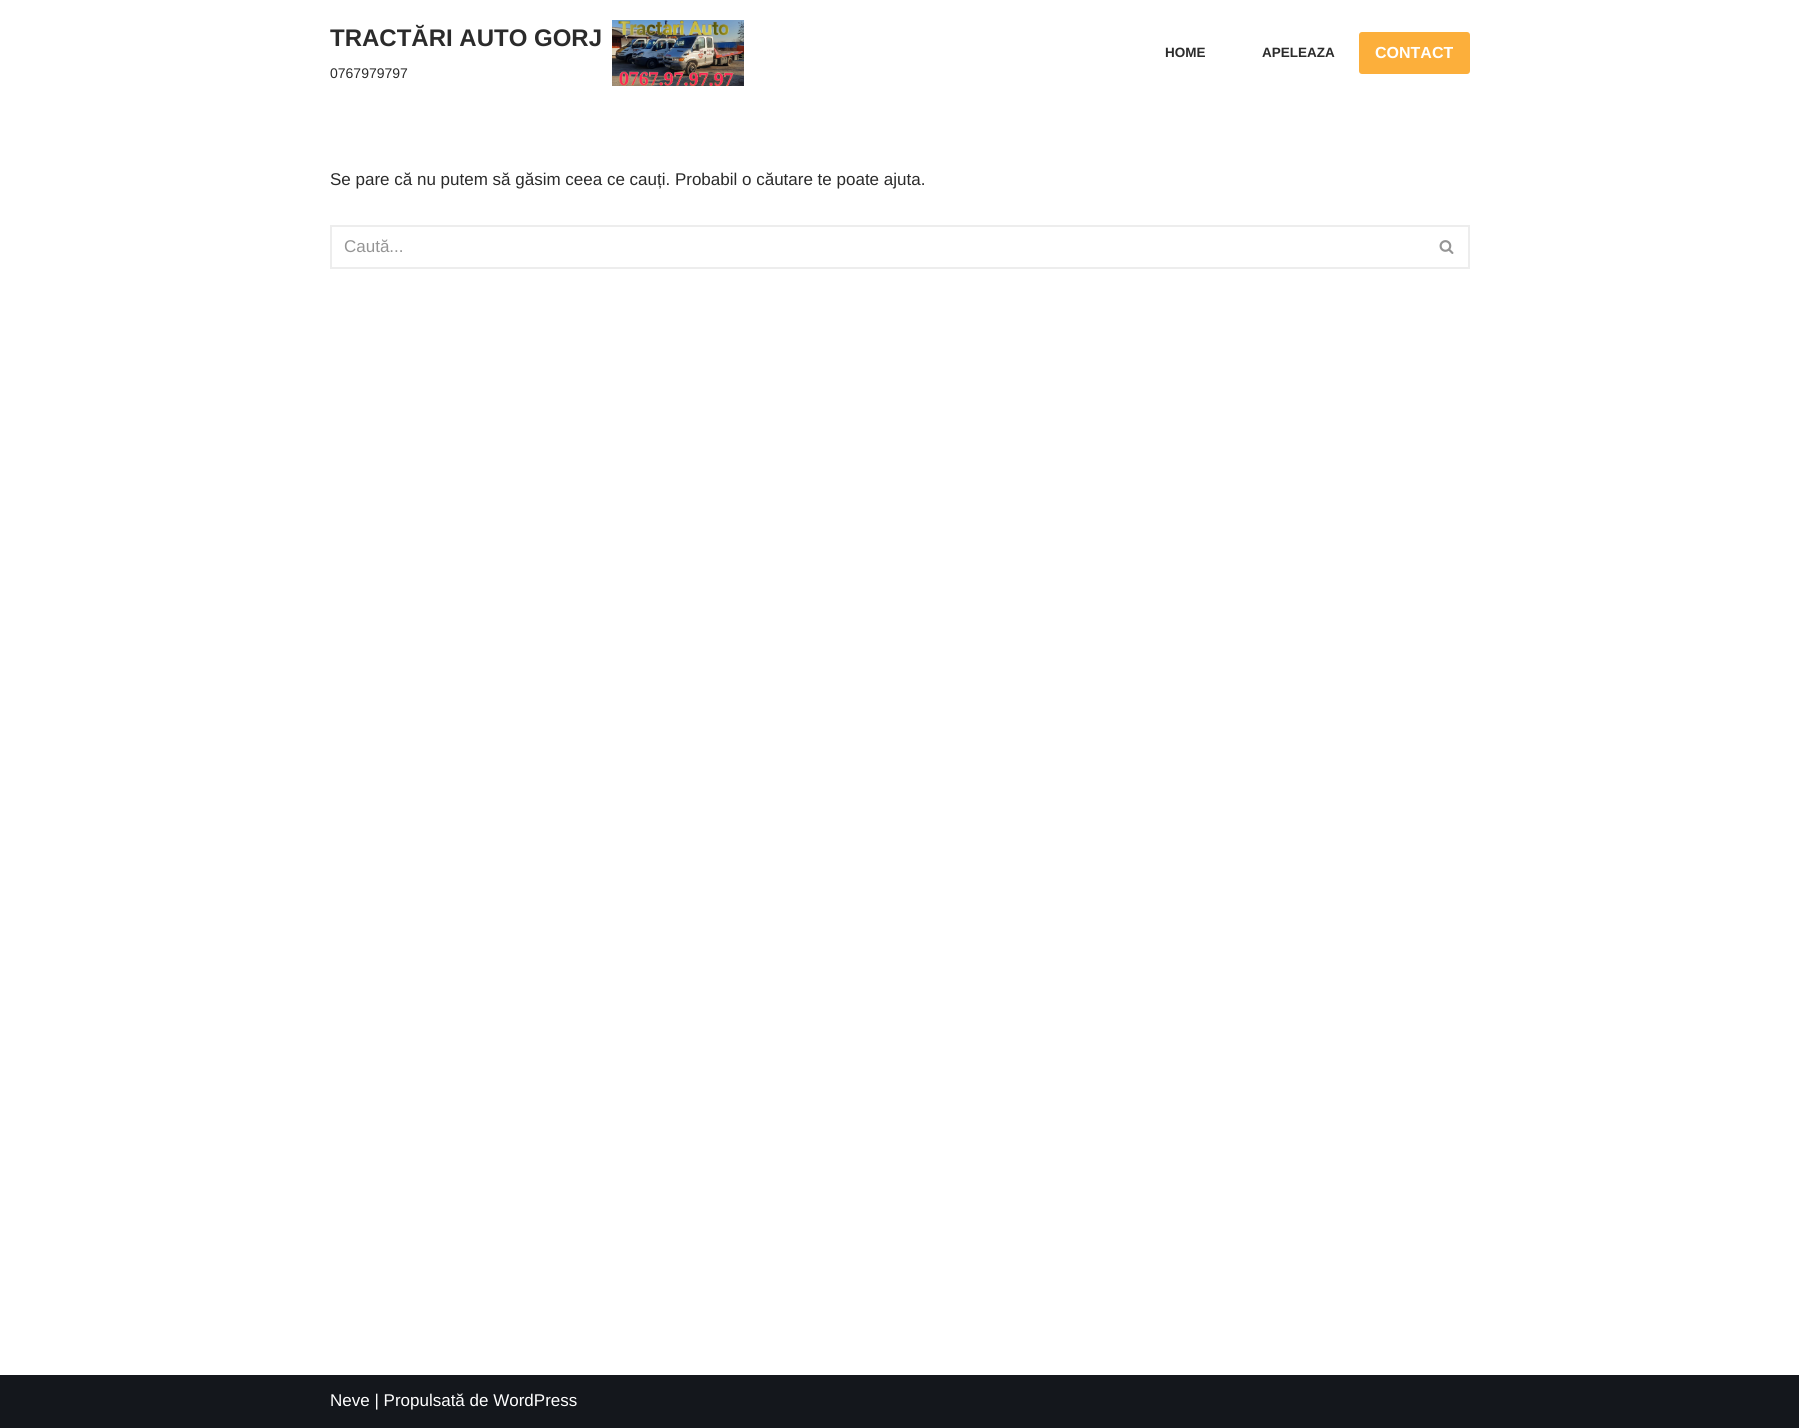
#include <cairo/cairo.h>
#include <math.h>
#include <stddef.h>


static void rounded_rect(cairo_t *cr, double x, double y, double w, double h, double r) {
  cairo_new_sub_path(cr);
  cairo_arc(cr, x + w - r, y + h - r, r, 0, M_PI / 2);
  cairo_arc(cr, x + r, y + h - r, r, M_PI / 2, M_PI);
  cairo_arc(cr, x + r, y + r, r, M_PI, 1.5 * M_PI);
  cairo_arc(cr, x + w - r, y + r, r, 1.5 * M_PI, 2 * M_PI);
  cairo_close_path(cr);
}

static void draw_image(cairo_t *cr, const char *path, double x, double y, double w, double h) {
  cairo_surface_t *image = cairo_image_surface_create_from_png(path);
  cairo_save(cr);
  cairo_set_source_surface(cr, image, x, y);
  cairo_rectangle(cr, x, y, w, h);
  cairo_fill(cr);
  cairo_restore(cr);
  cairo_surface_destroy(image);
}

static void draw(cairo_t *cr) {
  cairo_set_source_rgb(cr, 1, 1, 1);
  cairo_paint(cr);
  draw_image(cr, "images/1.png", 612, 20, 132, 66);
  cairo_set_source_rgb(cr, 252 / 255.0, 175 / 255.0, 59 / 255.0);
  rounded_rect(cr, 1359, 32, 111, 42, 3);
  cairo_fill(cr);
  cairo_set_source_rgb(cr, 237 / 255.0, 237 / 255.0, 237 / 255.0);
  cairo_rectangle(cr, 330, 225, 1140, 2);
  cairo_fill(cr);
  cairo_rectangle(cr, 330, 267, 1095, 2);
  cairo_fill(cr);
  cairo_rectangle(cr, 330, 225, 2, 44);
  cairo_fill(cr);
  cairo_rectangle(cr, 1468, 225, 2, 44);
  cairo_fill(cr);
  cairo_rectangle(cr, 1425, 267, 45, 2);
  cairo_fill(cr);
  draw_image(cr, "images/2.png", 1439, 240, 15, 14);
  cairo_set_source_rgb(cr, 20 / 255.0, 23 / 255.0, 28 / 255.0);
  cairo_rectangle(cr, 0, 1375, 1799, 53);
  cairo_fill(cr);
  cairo_select_font_face(cr, "Liberation Sans", CAIRO_FONT_SLANT_NORMAL, CAIRO_FONT_WEIGHT_BOLD);
  cairo_set_font_size(cr, 24);
  cairo_set_source_rgb(cr, 43 / 255.0, 43 / 255.0, 43 / 255.0);
  cairo_move_to(cr, 330, 46);
  cairo_show_text(cr, "TRACTĂRI AUTO GORJ");
  cairo_select_font_face(cr, "Liberation Sans", CAIRO_FONT_SLANT_NORMAL, CAIRO_FONT_WEIGHT_NORMAL);
  cairo_set_font_size(cr, 14);
  cairo_move_to(cr, 330, 78);
  cairo_show_text(cr, "0767979797");
  cairo_select_font_face(cr, "Liberation Sans", CAIRO_FONT_SLANT_NORMAL, CAIRO_FONT_WEIGHT_BOLD);
  cairo_set_font_size(cr, 13.5);
  cairo_move_to(cr, 1165, 57);
  cairo_show_text(cr, "HOME");
  cairo_move_to(cr, 1262, 57);
  cairo_show_text(cr, "APELEAZA");
  cairo_set_font_size(cr, 16);
  cairo_set_source_rgb(cr, 1, 1, 1);
  cairo_move_to(cr, 1375, 58);
  cairo_show_text(cr, "CONTACT");
  cairo_select_font_face(cr, "Liberation Sans", CAIRO_FONT_SLANT_NORMAL, CAIRO_FONT_WEIGHT_NORMAL);
  cairo_set_font_size(cr, 17);
  cairo_set_source_rgb(cr, 43 / 255.0, 43 / 255.0, 43 / 255.0);
  cairo_move_to(cr, 330, 185);
  cairo_show_text(cr, "Se pare că nu putem să găsim ceea ce cauți. Probabil o căutare te poate ajuta.");
  cairo_set_source_rgb(cr, 149 / 255.0, 149 / 255.0, 149 / 255.0);
  cairo_move_to(cr, 344, 252);
  cairo_show_text(cr, "Caută...");
  cairo_set_source_rgb(cr, 1, 1, 1);
  cairo_move_to(cr, 330, 1406);
  cairo_show_text(cr, "Neve | Propulsată de WordPress");
}

int main(void) {
  cairo_surface_t *surface = cairo_image_surface_create(CAIRO_FORMAT_RGB24, 1799, 1428);
  cairo_t *cr = cairo_create(surface);
  cairo_font_options_t *options = cairo_font_options_create();
  cairo_font_options_set_hint_metrics(options, CAIRO_HINT_METRICS_OFF);
  cairo_font_options_set_hint_style(options, CAIRO_HINT_STYLE_NONE);
  cairo_set_font_options(cr, options);
  cairo_set_miter_limit(cr, 4);
  draw(cr);
  cairo_surface_write_to_png(surface, "out.png");
  cairo_font_options_destroy(options);
  cairo_destroy(cr);
  cairo_surface_destroy(surface);
  return 0;
}
